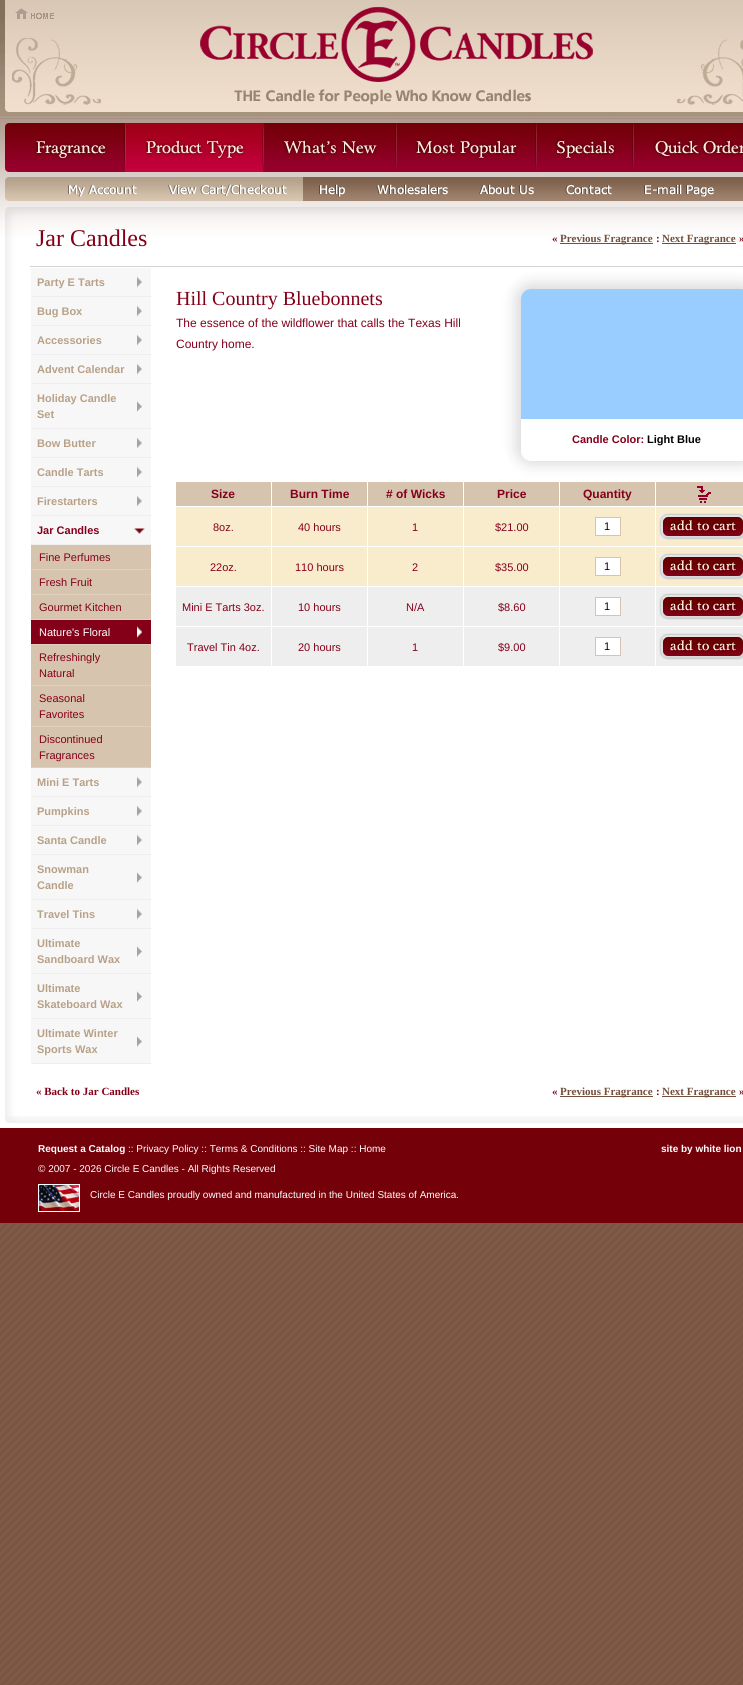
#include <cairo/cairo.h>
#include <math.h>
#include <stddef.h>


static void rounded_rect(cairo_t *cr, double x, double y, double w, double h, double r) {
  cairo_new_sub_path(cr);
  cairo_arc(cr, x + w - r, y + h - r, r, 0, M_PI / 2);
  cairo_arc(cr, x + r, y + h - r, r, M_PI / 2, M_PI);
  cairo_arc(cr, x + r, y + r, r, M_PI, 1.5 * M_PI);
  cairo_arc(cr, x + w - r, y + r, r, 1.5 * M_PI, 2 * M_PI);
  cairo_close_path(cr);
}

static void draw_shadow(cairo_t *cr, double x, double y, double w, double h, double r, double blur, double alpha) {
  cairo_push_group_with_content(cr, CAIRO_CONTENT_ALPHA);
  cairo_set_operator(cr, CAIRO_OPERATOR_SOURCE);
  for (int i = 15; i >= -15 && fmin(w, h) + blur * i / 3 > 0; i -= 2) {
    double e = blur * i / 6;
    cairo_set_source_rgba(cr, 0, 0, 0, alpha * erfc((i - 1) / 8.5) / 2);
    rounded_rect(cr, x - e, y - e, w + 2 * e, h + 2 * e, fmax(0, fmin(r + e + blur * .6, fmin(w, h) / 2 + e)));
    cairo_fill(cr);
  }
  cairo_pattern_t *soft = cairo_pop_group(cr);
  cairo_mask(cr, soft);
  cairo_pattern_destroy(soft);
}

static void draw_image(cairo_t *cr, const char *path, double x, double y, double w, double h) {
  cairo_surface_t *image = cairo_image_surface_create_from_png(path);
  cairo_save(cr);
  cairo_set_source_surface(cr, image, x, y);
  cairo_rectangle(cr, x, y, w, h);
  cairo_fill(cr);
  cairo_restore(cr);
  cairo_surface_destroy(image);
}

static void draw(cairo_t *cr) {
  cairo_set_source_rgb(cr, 1, 1, 1);
  cairo_paint(cr);
  draw_image(cr, "images/1.png", 0, 1223, 743, 462);
  draw_image(cr, "images/2.png", 0, 267, 743, 861);
  draw_image(cr, "images/3.png", 0, 0, 743, 119);
  draw_image(cr, "images/4.png", 0, 119, 125, 56);
  draw_image(cr, "images/5.png", 125, 119, 138, 56);
  draw_image(cr, "images/6.png", 263, 119, 133, 56);
  draw_image(cr, "images/7.png", 396, 119, 140, 56);
  draw_image(cr, "images/8.png", 536, 119, 97, 56);
  draw_image(cr, "images/9.png", 633, 119, 110, 56);
  draw_image(cr, "images/10.png", 0, 175, 153, 30);
  draw_image(cr, "images/11.png", 153, 175, 150, 30);
  draw_image(cr, "images/12.png", 303, 175, 58, 30);
  draw_image(cr, "images/13.png", 361, 175, 103, 30);
  draw_image(cr, "images/14.png", 464, 175, 87, 30);
  draw_image(cr, "images/15.png", 551, 175, 82, 30);
  draw_image(cr, "images/16.png", 633, 175, 110, 30);
  draw_image(cr, "images/17.png", 0, 205, 743, 62);
  cairo_set_source_rgb(cr, 116 / 255.0, 79 / 255.0, 60 / 255.0);
  cairo_rectangle(cr, 560, 243, 93, 1);
  cairo_fill(cr);
  cairo_rectangle(cr, 662, 243, 74, 1);
  cairo_fill(cr);
  cairo_set_source_rgb(cr, 247 / 255.0, 247 / 255.0, 247 / 255.0);
  cairo_rectangle(cr, 31, 268, 120, 28);
  cairo_fill(cr);
  draw_image(cr, "images/18.png", 137, 276, 5, 12);
  cairo_set_source_rgb(cr, 239 / 255.0, 237 / 255.0, 237 / 255.0);
  cairo_rectangle(cr, 31, 296, 120, 1);
  cairo_fill(cr);
  cairo_set_source_rgb(cr, 247 / 255.0, 247 / 255.0, 247 / 255.0);
  cairo_rectangle(cr, 31, 297, 120, 28);
  cairo_fill(cr);
  draw_image(cr, "images/18.png", 137, 305, 5, 12);
  cairo_set_source_rgb(cr, 239 / 255.0, 237 / 255.0, 237 / 255.0);
  cairo_rectangle(cr, 31, 325, 120, 1);
  cairo_fill(cr);
  cairo_set_source_rgb(cr, 247 / 255.0, 247 / 255.0, 247 / 255.0);
  cairo_rectangle(cr, 31, 326, 120, 28);
  cairo_fill(cr);
  draw_image(cr, "images/18.png", 137, 334, 5, 12);
  cairo_set_source_rgb(cr, 239 / 255.0, 237 / 255.0, 237 / 255.0);
  cairo_rectangle(cr, 31, 354, 120, 1);
  cairo_fill(cr);
  cairo_set_source_rgb(cr, 247 / 255.0, 247 / 255.0, 247 / 255.0);
  cairo_rectangle(cr, 31, 355, 120, 28);
  cairo_fill(cr);
  draw_image(cr, "images/18.png", 137, 363, 5, 12);
  cairo_set_source_rgb(cr, 239 / 255.0, 237 / 255.0, 237 / 255.0);
  cairo_rectangle(cr, 31, 383, 120, 1);
  cairo_fill(cr);
  cairo_set_source_rgb(cr, 247 / 255.0, 247 / 255.0, 247 / 255.0);
  cairo_rectangle(cr, 31, 384, 120, 44);
  cairo_fill(cr);
  draw_image(cr, "images/19.png", 137, 401, 5, 11);
  cairo_set_source_rgb(cr, 239 / 255.0, 237 / 255.0, 237 / 255.0);
  cairo_rectangle(cr, 31, 428, 120, 1);
  cairo_fill(cr);
  cairo_set_source_rgb(cr, 247 / 255.0, 247 / 255.0, 247 / 255.0);
  cairo_rectangle(cr, 31, 429, 120, 28);
  cairo_fill(cr);
  draw_image(cr, "images/18.png", 137, 437, 5, 12);
  cairo_set_source_rgb(cr, 239 / 255.0, 237 / 255.0, 237 / 255.0);
  cairo_rectangle(cr, 31, 457, 120, 1);
  cairo_fill(cr);
  cairo_set_source_rgb(cr, 247 / 255.0, 247 / 255.0, 247 / 255.0);
  cairo_rectangle(cr, 31, 458, 120, 28);
  cairo_fill(cr);
  draw_image(cr, "images/18.png", 137, 466, 5, 12);
  cairo_set_source_rgb(cr, 239 / 255.0, 237 / 255.0, 237 / 255.0);
  cairo_rectangle(cr, 31, 486, 120, 1);
  cairo_fill(cr);
  cairo_set_source_rgb(cr, 247 / 255.0, 247 / 255.0, 247 / 255.0);
  cairo_rectangle(cr, 31, 487, 120, 28);
  cairo_fill(cr);
  draw_image(cr, "images/18.png", 137, 495, 5, 12);
  cairo_set_source_rgb(cr, 239 / 255.0, 237 / 255.0, 237 / 255.0);
  cairo_rectangle(cr, 31, 515, 120, 1);
  cairo_fill(cr);
  cairo_set_source_rgb(cr, 247 / 255.0, 247 / 255.0, 247 / 255.0);
  cairo_rectangle(cr, 31, 516, 120, 28);
  cairo_fill(cr);
  draw_image(cr, "images/20.png", 134, 528, 11, 6);
  cairo_set_source_rgb(cr, 239 / 255.0, 237 / 255.0, 237 / 255.0);
  cairo_rectangle(cr, 31, 544, 120, 1);
  cairo_fill(cr);
  cairo_set_source_rgb(cr, 215 / 255.0, 196 / 255.0, 174 / 255.0);
  cairo_rectangle(cr, 31, 545, 120, 24);
  cairo_fill(cr);
  cairo_set_source_rgb(cr, 223 / 255.0, 208 / 255.0, 190 / 255.0);
  cairo_rectangle(cr, 31, 569, 120, 1);
  cairo_fill(cr);
  cairo_set_source_rgb(cr, 215 / 255.0, 196 / 255.0, 174 / 255.0);
  cairo_rectangle(cr, 31, 570, 120, 24);
  cairo_fill(cr);
  cairo_set_source_rgb(cr, 223 / 255.0, 208 / 255.0, 190 / 255.0);
  cairo_rectangle(cr, 31, 594, 120, 1);
  cairo_fill(cr);
  cairo_set_source_rgb(cr, 215 / 255.0, 196 / 255.0, 174 / 255.0);
  cairo_rectangle(cr, 31, 595, 120, 24);
  cairo_fill(cr);
  cairo_set_source_rgb(cr, 223 / 255.0, 208 / 255.0, 190 / 255.0);
  cairo_rectangle(cr, 31, 619, 120, 1);
  cairo_fill(cr);
  cairo_set_source_rgb(cr, 132 / 255.0, 0, 25 / 255.0);
  cairo_rectangle(cr, 31, 620, 120, 24);
  cairo_fill(cr);
  draw_image(cr, "images/21.png", 137, 626, 5, 12);
  cairo_set_source_rgb(cr, 223 / 255.0, 208 / 255.0, 190 / 255.0);
  cairo_rectangle(cr, 31, 644, 120, 1);
  cairo_fill(cr);
  cairo_set_source_rgb(cr, 215 / 255.0, 196 / 255.0, 174 / 255.0);
  cairo_rectangle(cr, 31, 645, 120, 40);
  cairo_fill(cr);
  cairo_set_source_rgb(cr, 223 / 255.0, 208 / 255.0, 190 / 255.0);
  cairo_rectangle(cr, 31, 685, 120, 1);
  cairo_fill(cr);
  cairo_set_source_rgb(cr, 215 / 255.0, 196 / 255.0, 174 / 255.0);
  cairo_rectangle(cr, 31, 686, 120, 40);
  cairo_fill(cr);
  cairo_set_source_rgb(cr, 223 / 255.0, 208 / 255.0, 190 / 255.0);
  cairo_rectangle(cr, 31, 726, 120, 1);
  cairo_fill(cr);
  cairo_set_source_rgb(cr, 215 / 255.0, 196 / 255.0, 174 / 255.0);
  cairo_rectangle(cr, 31, 727, 120, 40);
  cairo_fill(cr);
  cairo_set_source_rgb(cr, 223 / 255.0, 208 / 255.0, 190 / 255.0);
  cairo_rectangle(cr, 31, 767, 120, 1);
  cairo_fill(cr);
  cairo_set_source_rgb(cr, 247 / 255.0, 247 / 255.0, 247 / 255.0);
  cairo_rectangle(cr, 31, 768, 120, 28);
  cairo_fill(cr);
  draw_image(cr, "images/18.png", 137, 776, 5, 12);
  cairo_set_source_rgb(cr, 239 / 255.0, 237 / 255.0, 237 / 255.0);
  cairo_rectangle(cr, 31, 796, 120, 1);
  cairo_fill(cr);
  cairo_set_source_rgb(cr, 247 / 255.0, 247 / 255.0, 247 / 255.0);
  cairo_rectangle(cr, 31, 797, 120, 28);
  cairo_fill(cr);
  draw_image(cr, "images/18.png", 137, 805, 5, 12);
  cairo_set_source_rgb(cr, 239 / 255.0, 237 / 255.0, 237 / 255.0);
  cairo_rectangle(cr, 31, 825, 120, 1);
  cairo_fill(cr);
  cairo_set_source_rgb(cr, 247 / 255.0, 247 / 255.0, 247 / 255.0);
  cairo_rectangle(cr, 31, 826, 120, 28);
  cairo_fill(cr);
  draw_image(cr, "images/18.png", 137, 834, 5, 12);
  cairo_set_source_rgb(cr, 239 / 255.0, 237 / 255.0, 237 / 255.0);
  cairo_rectangle(cr, 31, 854, 120, 1);
  cairo_fill(cr);
  cairo_set_source_rgb(cr, 247 / 255.0, 247 / 255.0, 247 / 255.0);
  cairo_rectangle(cr, 31, 855, 120, 44);
  cairo_fill(cr);
  draw_image(cr, "images/19.png", 137, 872, 5, 11);
  cairo_set_source_rgb(cr, 239 / 255.0, 237 / 255.0, 237 / 255.0);
  cairo_rectangle(cr, 31, 899, 120, 1);
  cairo_fill(cr);
  cairo_set_source_rgb(cr, 247 / 255.0, 247 / 255.0, 247 / 255.0);
  cairo_rectangle(cr, 31, 900, 120, 28);
  cairo_fill(cr);
  draw_image(cr, "images/18.png", 137, 908, 5, 12);
  cairo_set_source_rgb(cr, 239 / 255.0, 237 / 255.0, 237 / 255.0);
  cairo_rectangle(cr, 31, 928, 120, 1);
  cairo_fill(cr);
  cairo_set_source_rgb(cr, 247 / 255.0, 247 / 255.0, 247 / 255.0);
  cairo_rectangle(cr, 31, 929, 120, 44);
  cairo_fill(cr);
  draw_image(cr, "images/19.png", 137, 946, 5, 11);
  cairo_set_source_rgb(cr, 239 / 255.0, 237 / 255.0, 237 / 255.0);
  cairo_rectangle(cr, 31, 973, 120, 1);
  cairo_fill(cr);
  cairo_set_source_rgb(cr, 247 / 255.0, 247 / 255.0, 247 / 255.0);
  cairo_rectangle(cr, 31, 974, 120, 44);
  cairo_fill(cr);
  draw_image(cr, "images/19.png", 137, 991, 5, 11);
  cairo_set_source_rgb(cr, 239 / 255.0, 237 / 255.0, 237 / 255.0);
  cairo_rectangle(cr, 31, 1018, 120, 1);
  cairo_fill(cr);
  cairo_set_source_rgb(cr, 247 / 255.0, 247 / 255.0, 247 / 255.0);
  cairo_rectangle(cr, 31, 1019, 120, 44);
  cairo_fill(cr);
  draw_image(cr, "images/19.png", 137, 1036, 5, 11);
  cairo_set_source_rgb(cr, 239 / 255.0, 237 / 255.0, 237 / 255.0);
  cairo_rectangle(cr, 31, 1063, 120, 1);
  cairo_fill(cr);
  cairo_set_source_rgb(cr, 215 / 255.0, 196 / 255.0, 174 / 255.0);
  cairo_rectangle(cr, 464, 482, 95, 24);
  cairo_fill(cr);
  cairo_rectangle(cr, 560, 482, 95, 24);
  cairo_fill(cr);
  cairo_rectangle(cr, 656, 482, 87, 24);
  cairo_fill(cr);
  cairo_set_source_rgb(cr, 0, 0, 0);
  draw_shadow(cr, 516, 284, 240, 180, 15, 7.5, 0.15);
  cairo_set_source_rgb(cr, 153 / 255.0, 204 / 255.0, 1);
  rounded_rect(cr, 521, 289, 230, 170, 10);
  cairo_fill(cr);
  cairo_set_source_rgb(cr, 1, 1, 1);
  cairo_new_path(cr);
  cairo_move_to(cr, 521, 419);
  cairo_line_to(cr, 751, 419);
  cairo_line_to(cr, 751, 451);
  cairo_curve_to(cr, 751, 456.5, 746.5, 461, 741, 461);
  cairo_line_to(cr, 531, 461);
  cairo_curve_to(cr, 525.5, 461, 521, 456.5, 521, 451);
  cairo_close_path(cr);
  cairo_fill(cr);
  cairo_set_source_rgb(cr, 238 / 255.0, 238 / 255.0, 238 / 255.0);
  cairo_rectangle(cr, 176, 587, 567, 79);
  cairo_fill(cr);
  cairo_set_source_rgb(cr, 215 / 255.0, 196 / 255.0, 174 / 255.0);
  cairo_rectangle(cr, 176, 482, 95, 24);
  cairo_fill(cr);
  cairo_rectangle(cr, 272, 482, 95, 24);
  cairo_fill(cr);
  cairo_rectangle(cr, 368, 482, 95, 24);
  cairo_fill(cr);
  draw_image(cr, "images/22.png", 697, 486, 14, 17);
  cairo_set_source_rgb(cr, 249 / 255.0, 236 / 255.0, 205 / 255.0);
  cairo_rectangle(cr, 176, 507, 567, 39);
  cairo_fill(cr);
  cairo_set_source_rgb(cr, 1, 1, 1);
  cairo_rectangle(cr, 595.5, 517.5, 25, 18);
  cairo_fill_preserve(cr);
  cairo_set_source_rgb(cr, 215 / 255.0, 196 / 255.0, 174 / 255.0);
  cairo_set_line_width(cr, 1);
  cairo_stroke(cr);
  draw_image(cr, "images/23.png", 659, 513, 84, 27);
  cairo_set_source_rgb(cr, 249 / 255.0, 236 / 255.0, 205 / 255.0);
  cairo_rectangle(cr, 176, 547, 567, 39);
  cairo_fill(cr);
  cairo_set_source_rgb(cr, 1, 1, 1);
  cairo_rectangle(cr, 595.5, 557.5, 25, 18);
  cairo_fill_preserve(cr);
  cairo_set_source_rgb(cr, 215 / 255.0, 196 / 255.0, 174 / 255.0);
  cairo_stroke(cr);
  draw_image(cr, "images/23.png", 659, 553, 84, 27);
  cairo_set_source_rgb(cr, 1, 1, 1);
  cairo_rectangle(cr, 655, 626, 88, 1);
  cairo_fill(cr);
  cairo_rectangle(cr, 655, 626, 1, 41);
  cairo_fill(cr);
  cairo_rectangle(cr, 559, 626, 97, 1);
  cairo_fill(cr);
  cairo_rectangle(cr, 559, 626, 1, 41);
  cairo_fill(cr);
  cairo_rectangle(cr, 463, 626, 97, 1);
  cairo_fill(cr);
  cairo_rectangle(cr, 463, 626, 1, 41);
  cairo_fill(cr);
  cairo_rectangle(cr, 367, 626, 97, 1);
  cairo_fill(cr);
  cairo_rectangle(cr, 367, 626, 1, 41);
  cairo_fill(cr);
  cairo_rectangle(cr, 271, 626, 97, 1);
  cairo_fill(cr);
  cairo_rectangle(cr, 271, 626, 1, 41);
  cairo_fill(cr);
  cairo_rectangle(cr, 175, 626, 97, 1);
  cairo_fill(cr);
  cairo_rectangle(cr, 271, 506, 1, 121);
  cairo_fill(cr);
  cairo_rectangle(cr, 367, 506, 1, 121);
  cairo_fill(cr);
  cairo_rectangle(cr, 463, 506, 1, 121);
  cairo_fill(cr);
  cairo_rectangle(cr, 559, 506, 1, 121);
  cairo_fill(cr);
  cairo_rectangle(cr, 595.5, 597.5, 25, 18);
  cairo_fill_preserve(cr);
  cairo_set_source_rgb(cr, 215 / 255.0, 196 / 255.0, 174 / 255.0);
  cairo_stroke(cr);
  cairo_set_source_rgb(cr, 1, 1, 1);
  cairo_rectangle(cr, 655, 506, 1, 121);
  cairo_fill(cr);
  draw_image(cr, "images/23.png", 659, 593, 84, 27);
  cairo_rectangle(cr, 595.5, 637.5, 25, 18);
  cairo_fill_preserve(cr);
  cairo_set_source_rgb(cr, 215 / 255.0, 196 / 255.0, 174 / 255.0);
  cairo_stroke(cr);
  draw_image(cr, "images/23.png", 659, 633, 84, 27);
  draw_image(cr, "images/24.png", 5, 1116, 738, 12);
  cairo_set_source_rgb(cr, 116 / 255.0, 79 / 255.0, 60 / 255.0);
  cairo_rectangle(cr, 560, 1096, 93, 1);
  cairo_fill(cr);
  cairo_rectangle(cr, 662, 1096, 74, 1);
  cairo_fill(cr);
  cairo_set_source_rgb(cr, 116 / 255.0, 0, 9 / 255.0);
  cairo_rectangle(cr, 0, 1128, 743, 95);
  cairo_fill(cr);
  draw_image(cr, "images/25.png", 38, 1184, 42, 28);
  cairo_select_font_face(cr, "Liberation Serif", CAIRO_FONT_SLANT_NORMAL, CAIRO_FONT_WEIGHT_NORMAL);
  cairo_set_font_size(cr, 24);
  cairo_set_source_rgb(cr, 132 / 255.0, 0, 25 / 255.0);
  cairo_move_to(cr, 36, 246);
  cairo_show_text(cr, "Jar Candles");
  cairo_select_font_face(cr, "Liberation Serif", CAIRO_FONT_SLANT_NORMAL, CAIRO_FONT_WEIGHT_BOLD);
  cairo_set_font_size(cr, 11);
  cairo_move_to(cr, 552, 242);
  cairo_show_text(cr, "«");
  cairo_set_source_rgb(cr, 116 / 255.0, 79 / 255.0, 60 / 255.0);
  cairo_move_to(cr, 560, 242);
  cairo_show_text(cr, "Previous Fragrance");
  cairo_set_source_rgb(cr, 132 / 255.0, 0, 25 / 255.0);
  cairo_move_to(cr, 656, 242);
  cairo_show_text(cr, ":");
  cairo_set_source_rgb(cr, 116 / 255.0, 79 / 255.0, 60 / 255.0);
  cairo_move_to(cr, 662, 242);
  cairo_show_text(cr, "Next Fragrance");
  cairo_set_source_rgb(cr, 132 / 255.0, 0, 25 / 255.0);
  cairo_move_to(cr, 739, 242);
  cairo_show_text(cr, "»");
  cairo_select_font_face(cr, "Liberation Sans", CAIRO_FONT_SLANT_NORMAL, CAIRO_FONT_WEIGHT_BOLD);
  cairo_set_source_rgb(cr, 184 / 255.0, 161 / 255.0, 135 / 255.0);
  cairo_move_to(cr, 37, 286);
  cairo_show_text(cr, "Party E Tarts");
  cairo_move_to(cr, 37, 315);
  cairo_show_text(cr, "Bug Box");
  cairo_move_to(cr, 37, 344);
  cairo_show_text(cr, "Accessories");
  cairo_move_to(cr, 37, 373);
  cairo_show_text(cr, "Advent Calendar");
  cairo_move_to(cr, 37, 402);
  cairo_show_text(cr, "Holiday Candle");
  cairo_move_to(cr, 37, 418);
  cairo_show_text(cr, "Set");
  cairo_move_to(cr, 37, 447);
  cairo_show_text(cr, "Bow Butter");
  cairo_move_to(cr, 37, 476);
  cairo_show_text(cr, "Candle Tarts");
  cairo_move_to(cr, 37, 505);
  cairo_show_text(cr, "Firestarters");
  cairo_set_source_rgb(cr, 132 / 255.0, 0, 25 / 255.0);
  cairo_move_to(cr, 37, 534);
  cairo_show_text(cr, "Jar Candles");
  cairo_select_font_face(cr, "Liberation Sans", CAIRO_FONT_SLANT_NORMAL, CAIRO_FONT_WEIGHT_NORMAL);
  cairo_move_to(cr, 39, 561);
  cairo_show_text(cr, "Fine Perfumes");
  cairo_move_to(cr, 39, 586);
  cairo_show_text(cr, "Fresh Fruit");
  cairo_move_to(cr, 39, 611);
  cairo_show_text(cr, "Gourmet Kitchen");
  cairo_set_source_rgb(cr, 1, 1, 1);
  cairo_move_to(cr, 39, 636);
  cairo_show_text(cr, "Nature's Floral");
  cairo_set_source_rgb(cr, 132 / 255.0, 0, 25 / 255.0);
  cairo_move_to(cr, 39, 661);
  cairo_show_text(cr, "Refreshingly");
  cairo_move_to(cr, 39, 677);
  cairo_show_text(cr, "Natural");
  cairo_move_to(cr, 39, 702);
  cairo_show_text(cr, "Seasonal");
  cairo_move_to(cr, 39, 718);
  cairo_show_text(cr, "Favorites");
  cairo_move_to(cr, 39, 743);
  cairo_show_text(cr, "Discontinued");
  cairo_move_to(cr, 39, 759);
  cairo_show_text(cr, "Fragrances");
  cairo_select_font_face(cr, "Liberation Sans", CAIRO_FONT_SLANT_NORMAL, CAIRO_FONT_WEIGHT_BOLD);
  cairo_set_source_rgb(cr, 184 / 255.0, 161 / 255.0, 135 / 255.0);
  cairo_move_to(cr, 37, 786);
  cairo_show_text(cr, "Mini E Tarts");
  cairo_move_to(cr, 37, 815);
  cairo_show_text(cr, "Pumpkins");
  cairo_move_to(cr, 37, 844);
  cairo_show_text(cr, "Santa Candle");
  cairo_move_to(cr, 37, 873);
  cairo_show_text(cr, "Snowman");
  cairo_move_to(cr, 37, 889);
  cairo_show_text(cr, "Candle");
  cairo_move_to(cr, 37, 918);
  cairo_show_text(cr, "Travel Tins");
  cairo_move_to(cr, 37, 947);
  cairo_show_text(cr, "Ultimate");
  cairo_move_to(cr, 37, 963);
  cairo_show_text(cr, "Sandboard Wax");
  cairo_move_to(cr, 37, 992);
  cairo_show_text(cr, "Ultimate");
  cairo_move_to(cr, 37, 1008);
  cairo_show_text(cr, "Skateboard Wax");
  cairo_move_to(cr, 37, 1037);
  cairo_show_text(cr, "Ultimate Winter");
  cairo_move_to(cr, 37, 1053);
  cairo_show_text(cr, "Sports Wax");
  cairo_select_font_face(cr, "Liberation Serif", CAIRO_FONT_SLANT_NORMAL, CAIRO_FONT_WEIGHT_NORMAL);
  cairo_set_font_size(cr, 20);
  cairo_set_source_rgb(cr, 132 / 255.0, 0, 25 / 255.0);
  cairo_move_to(cr, 176, 305);
  cairo_show_text(cr, "Hill Country Bluebonnets");
  cairo_select_font_face(cr, "Liberation Sans", CAIRO_FONT_SLANT_NORMAL, CAIRO_FONT_WEIGHT_NORMAL);
  cairo_set_font_size(cr, 12);
  cairo_move_to(cr, 176, 327);
  cairo_show_text(cr, "The essence of the wildflower that calls the Texas Hill");
  cairo_move_to(cr, 176, 348);
  cairo_show_text(cr, "Country home.");
  cairo_select_font_face(cr, "Liberation Sans", CAIRO_FONT_SLANT_NORMAL, CAIRO_FONT_WEIGHT_BOLD);
  cairo_set_font_size(cr, 11);
  cairo_move_to(cr, 572, 443);
  cairo_show_text(cr, "Candle Color:");
  cairo_set_source_rgb(cr, 0, 0, 0);
  cairo_move_to(cr, 647, 443);
  cairo_show_text(cr, "Light Blue");
  cairo_set_font_size(cr, 12);
  cairo_set_source_rgb(cr, 132 / 255.0, 0, 25 / 255.0);
  cairo_move_to(cr, 211, 498);
  cairo_show_text(cr, "Size");
  cairo_move_to(cr, 290, 498);
  cairo_show_text(cr, "Burn Time");
  cairo_move_to(cr, 386, 498);
  cairo_show_text(cr, "# of Wicks");
  cairo_move_to(cr, 497, 498);
  cairo_show_text(cr, "Price");
  cairo_move_to(cr, 583, 498);
  cairo_show_text(cr, "Quantity");
  cairo_select_font_face(cr, "Liberation Sans", CAIRO_FONT_SLANT_NORMAL, CAIRO_FONT_WEIGHT_NORMAL);
  cairo_set_font_size(cr, 11);
  cairo_move_to(cr, 213, 531);
  cairo_show_text(cr, "8oz.");
  cairo_move_to(cr, 298, 531);
  cairo_show_text(cr, "40 hours");
  cairo_move_to(cr, 412, 531);
  cairo_show_text(cr, "1");
  cairo_move_to(cr, 495, 531);
  cairo_show_text(cr, "$21.00");
  cairo_set_source_rgb(cr, 0, 0, 0);
  cairo_move_to(cr, 604, 530);
  cairo_show_text(cr, "1");
  cairo_set_source_rgb(cr, 132 / 255.0, 0, 25 / 255.0);
  cairo_move_to(cr, 210, 571);
  cairo_show_text(cr, "22oz.");
  cairo_move_to(cr, 295, 571);
  cairo_show_text(cr, "110 hours");
  cairo_move_to(cr, 412, 571);
  cairo_show_text(cr, "2");
  cairo_move_to(cr, 495, 571);
  cairo_show_text(cr, "$35.00");
  cairo_set_source_rgb(cr, 0, 0, 0);
  cairo_move_to(cr, 604, 570);
  cairo_show_text(cr, "1");
  cairo_set_source_rgb(cr, 132 / 255.0, 0, 25 / 255.0);
  cairo_move_to(cr, 182, 611);
  cairo_show_text(cr, "Mini E Tarts 3oz.");
  cairo_move_to(cr, 298, 611);
  cairo_show_text(cr, "10 hours");
  cairo_move_to(cr, 406, 611);
  cairo_show_text(cr, "N/A");
  cairo_move_to(cr, 498, 611);
  cairo_show_text(cr, "$8.60");
  cairo_set_source_rgb(cr, 0, 0, 0);
  cairo_move_to(cr, 604, 610);
  cairo_show_text(cr, "1");
  cairo_set_source_rgb(cr, 132 / 255.0, 0, 25 / 255.0);
  cairo_move_to(cr, 187, 651);
  cairo_show_text(cr, "Travel Tin 4oz.");
  cairo_move_to(cr, 298, 651);
  cairo_show_text(cr, "20 hours");
  cairo_move_to(cr, 412, 651);
  cairo_show_text(cr, "1");
  cairo_move_to(cr, 498, 651);
  cairo_show_text(cr, "$9.00");
  cairo_set_source_rgb(cr, 0, 0, 0);
  cairo_move_to(cr, 604, 650);
  cairo_show_text(cr, "1");
  cairo_select_font_face(cr, "Liberation Serif", CAIRO_FONT_SLANT_NORMAL, CAIRO_FONT_WEIGHT_BOLD);
  cairo_set_source_rgb(cr, 132 / 255.0, 0, 25 / 255.0);
  cairo_move_to(cr, 36, 1095);
  cairo_show_text(cr, "« Back to Jar Candles");
  cairo_move_to(cr, 552, 1095);
  cairo_show_text(cr, "«");
  cairo_set_source_rgb(cr, 116 / 255.0, 79 / 255.0, 60 / 255.0);
  cairo_move_to(cr, 560, 1095);
  cairo_show_text(cr, "Previous Fragrance");
  cairo_set_source_rgb(cr, 132 / 255.0, 0, 25 / 255.0);
  cairo_move_to(cr, 656, 1095);
  cairo_show_text(cr, ":");
  cairo_set_source_rgb(cr, 116 / 255.0, 79 / 255.0, 60 / 255.0);
  cairo_move_to(cr, 662, 1095);
  cairo_show_text(cr, "Next Fragrance");
  cairo_set_source_rgb(cr, 132 / 255.0, 0, 25 / 255.0);
  cairo_move_to(cr, 739, 1095);
  cairo_show_text(cr, "»");
  cairo_select_font_face(cr, "Liberation Sans", CAIRO_FONT_SLANT_NORMAL, CAIRO_FONT_WEIGHT_BOLD);
  cairo_set_font_size(cr, 10);
  cairo_set_source_rgb(cr, 1, 1, 1);
  cairo_move_to(cr, 38, 1152);
  cairo_show_text(cr, "Request a Catalog");
  cairo_select_font_face(cr, "Liberation Sans", CAIRO_FONT_SLANT_NORMAL, CAIRO_FONT_WEIGHT_NORMAL);
  cairo_move_to(cr, 128, 1152);
  cairo_show_text(cr, ":: Privacy Policy :: Terms & Conditions :: Site Map :: Home");
  cairo_move_to(cr, 38, 1172);
  cairo_show_text(cr, "© 2007 - 2026 Circle E Candles - All Rights Reserved");
  cairo_move_to(cr, 90, 1198);
  cairo_show_text(cr, "Circle E Candles proudly owned and manufactured in the United States of America.");
  cairo_select_font_face(cr, "Liberation Sans", CAIRO_FONT_SLANT_NORMAL, CAIRO_FONT_WEIGHT_BOLD);
  cairo_move_to(cr, 661, 1152);
  cairo_show_text(cr, "site by white lion");
}

int main(void) {
  cairo_surface_t *surface = cairo_image_surface_create(CAIRO_FORMAT_RGB24, 743, 1685);
  cairo_t *cr = cairo_create(surface);
  cairo_font_options_t *options = cairo_font_options_create();
  cairo_font_options_set_hint_metrics(options, CAIRO_HINT_METRICS_OFF);
  cairo_font_options_set_hint_style(options, CAIRO_HINT_STYLE_NONE);
  cairo_set_font_options(cr, options);
  cairo_set_miter_limit(cr, 4);
  draw(cr);
  cairo_surface_write_to_png(surface, "out.png");
  cairo_font_options_destroy(options);
  cairo_destroy(cr);
  cairo_surface_destroy(surface);
  return 0;
}
